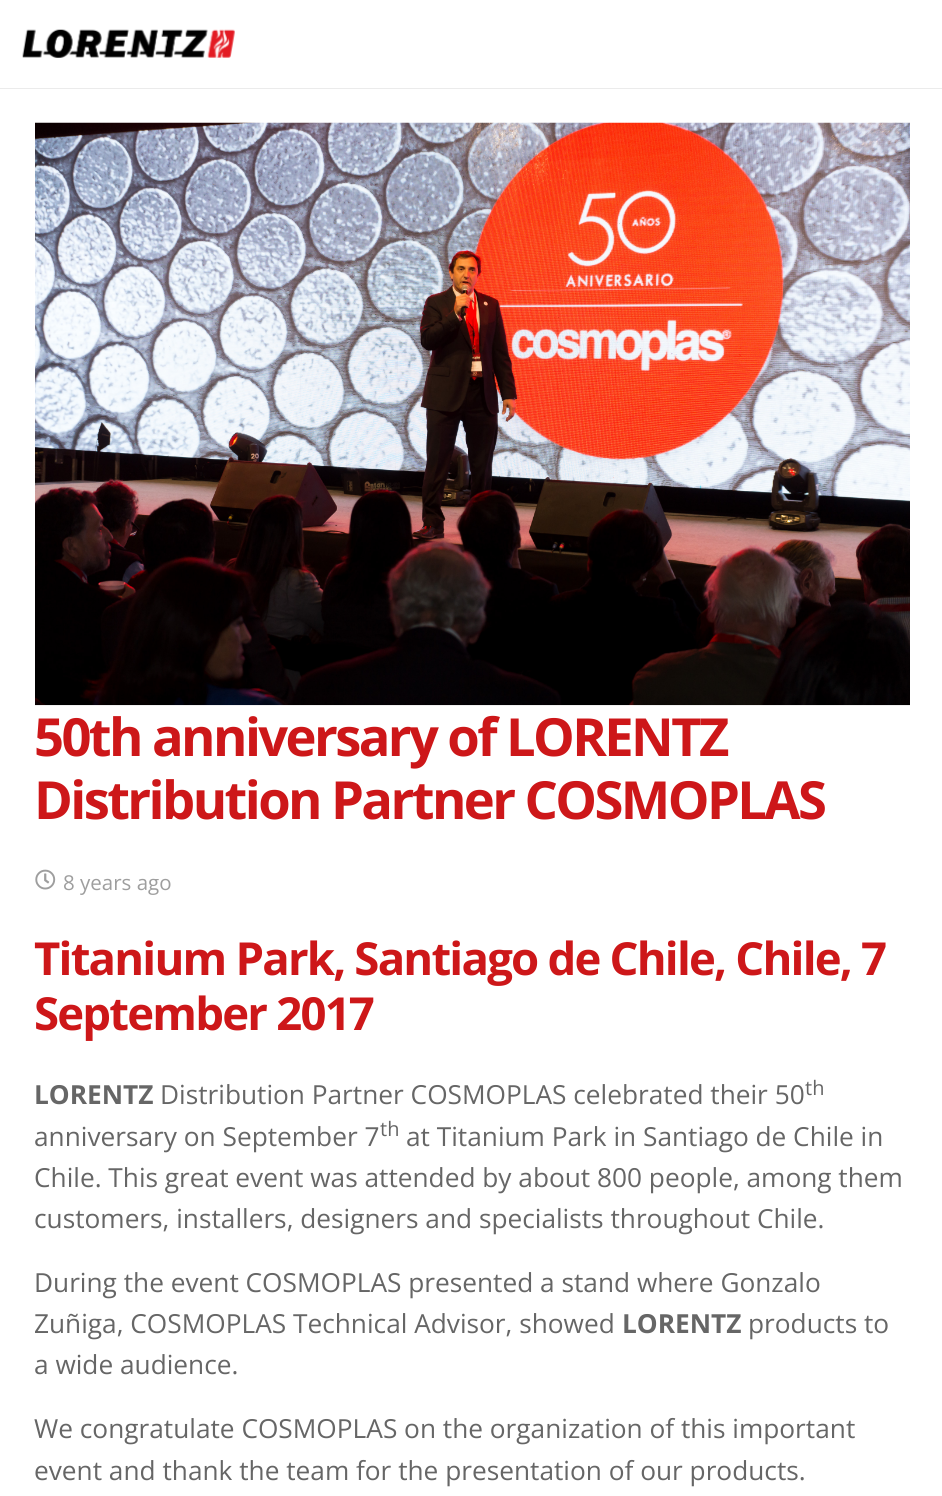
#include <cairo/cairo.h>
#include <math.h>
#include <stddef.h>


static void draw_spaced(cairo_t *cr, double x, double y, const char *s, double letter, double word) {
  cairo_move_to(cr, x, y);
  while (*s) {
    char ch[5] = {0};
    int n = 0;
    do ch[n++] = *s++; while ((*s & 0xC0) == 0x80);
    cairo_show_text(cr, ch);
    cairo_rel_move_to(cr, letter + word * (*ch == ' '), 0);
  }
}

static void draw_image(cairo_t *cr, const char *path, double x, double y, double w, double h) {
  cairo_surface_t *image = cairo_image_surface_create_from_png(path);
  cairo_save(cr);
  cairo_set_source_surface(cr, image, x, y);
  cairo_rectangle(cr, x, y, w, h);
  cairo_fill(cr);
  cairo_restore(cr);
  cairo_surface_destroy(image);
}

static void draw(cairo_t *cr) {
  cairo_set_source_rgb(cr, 1, 1, 1);
  cairo_paint(cr);
  cairo_set_source_rgb(cr, 235 / 255.0, 235 / 255.0, 235 / 255.0);
  cairo_rectangle(cr, 0, 88, 942, 1);
  cairo_fill(cr);
  draw_image(cr, "images/1.png", 22, 29, 213, 29);
  draw_image(cr, "images/2.png", 35, 122, 875, 584);
  draw_image(cr, "images/3.png", 35, 869, 21, 21);
  cairo_select_font_face(cr, "Open Sans", CAIRO_FONT_SLANT_NORMAL, CAIRO_FONT_WEIGHT_BOLD);
  cairo_set_font_size(cr, 52.5);
  cairo_set_source_rgb(cr, 205 / 255.0, 23 / 255.0, 25 / 255.0);
  draw_spaced(cr, 34, 756, "50th anniversary of LORENTZ", -2.6, 0);
  draw_spaced(cr, 34, 819, "Distribution Partner COSMOPLAS", -2.6, 0);
  cairo_select_font_face(cr, "Open Sans", CAIRO_FONT_SLANT_NORMAL, CAIRO_FONT_WEIGHT_NORMAL);
  cairo_set_font_size(cr, 20.5);
  cairo_set_source_rgb(cr, 158 / 255.0, 158 / 255.0, 158 / 255.0);
  cairo_move_to(cr, 63, 890);
  cairo_show_text(cr, "8 years ago");
  cairo_select_font_face(cr, "Open Sans", CAIRO_FONT_SLANT_NORMAL, CAIRO_FONT_WEIGHT_BOLD);
  cairo_set_font_size(cr, 45.5);
  cairo_set_source_rgb(cr, 205 / 255.0, 23 / 255.0, 25 / 255.0);
  draw_spaced(cr, 34, 975, "Titanium Park, Santiago de Chile, Chile, 7", -1.8, 0);
  draw_spaced(cr, 34, 1030, "September 2017", -1.8, 0);
  cairo_set_font_size(cr, 26.25);
  cairo_set_source_rgb(cr, 102 / 255.0, 102 / 255.0, 102 / 255.0);
  cairo_move_to(cr, 34, 1104);
  cairo_show_text(cr, "LORENTZ");
  cairo_select_font_face(cr, "Open Sans", CAIRO_FONT_SLANT_NORMAL, CAIRO_FONT_WEIGHT_NORMAL);
  cairo_move_to(cr, 160, 1104);
  cairo_show_text(cr, "Distribution Partner COSMOPLAS celebrated their 50");
  cairo_set_font_size(cr, 20);
  cairo_move_to(cr, 805, 1095);
  cairo_show_text(cr, "th");
  cairo_set_font_size(cr, 26.25);
  cairo_move_to(cr, 34, 1146);
  cairo_show_text(cr, "anniversary on September 7");
  cairo_set_font_size(cr, 20);
  cairo_move_to(cr, 380, 1136);
  cairo_show_text(cr, "th");
  cairo_set_font_size(cr, 26.25);
  cairo_move_to(cr, 406, 1146);
  cairo_show_text(cr, "at Titanium Park in Santiago de Chile in");
  cairo_move_to(cr, 34, 1187);
  cairo_show_text(cr, "Chile. This great event was attended by about 800 people, among them");
  cairo_move_to(cr, 34, 1228);
  cairo_show_text(cr, "customers, installers, designers and specialists throughout Chile.");
  cairo_move_to(cr, 34, 1292);
  cairo_show_text(cr, "During the event COSMOPLAS presented a stand where Gonzalo");
  cairo_move_to(cr, 34, 1333);
  cairo_show_text(cr, "Zuñiga, COSMOPLAS Technical Advisor, showed");
  cairo_select_font_face(cr, "Open Sans", CAIRO_FONT_SLANT_NORMAL, CAIRO_FONT_WEIGHT_BOLD);
  cairo_move_to(cr, 622, 1333);
  cairo_show_text(cr, "LORENTZ");
  cairo_select_font_face(cr, "Open Sans", CAIRO_FONT_SLANT_NORMAL, CAIRO_FONT_WEIGHT_NORMAL);
  cairo_move_to(cr, 748, 1333);
  cairo_show_text(cr, "products to");
  cairo_move_to(cr, 34, 1374);
  cairo_show_text(cr, "a wide audience.");
  cairo_move_to(cr, 34, 1438);
  cairo_show_text(cr, "We congratulate COSMOPLAS on the organization of this important");
  cairo_move_to(cr, 34, 1480);
  cairo_show_text(cr, "event and thank the team for the presentation of our products.");
}

int main(void) {
  cairo_surface_t *surface = cairo_image_surface_create(CAIRO_FORMAT_RGB24, 942, 1496);
  cairo_t *cr = cairo_create(surface);
  cairo_font_options_t *options = cairo_font_options_create();
  cairo_font_options_set_hint_metrics(options, CAIRO_HINT_METRICS_OFF);
  cairo_font_options_set_hint_style(options, CAIRO_HINT_STYLE_NONE);
  cairo_set_font_options(cr, options);
  cairo_set_miter_limit(cr, 4);
  draw(cr);
  cairo_surface_write_to_png(surface, "out.png");
  cairo_font_options_destroy(options);
  cairo_destroy(cr);
  cairo_surface_destroy(surface);
  return 0;
}
